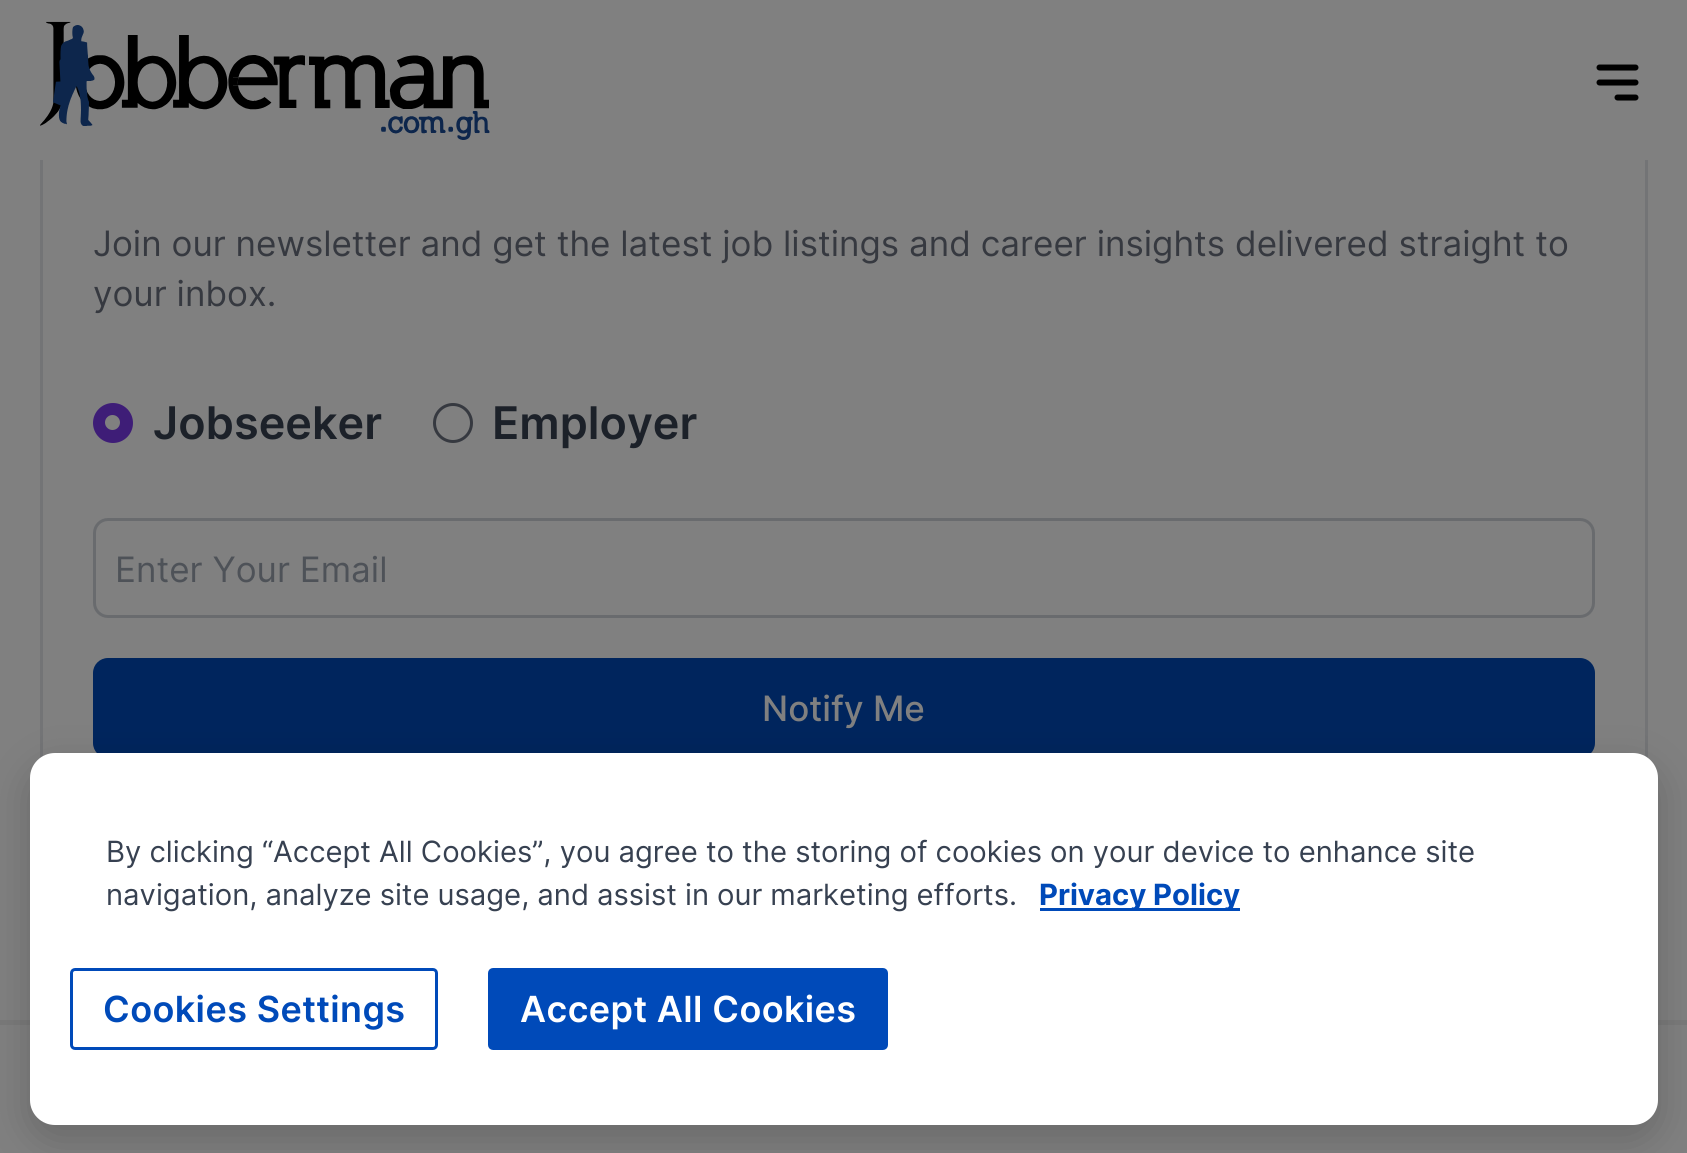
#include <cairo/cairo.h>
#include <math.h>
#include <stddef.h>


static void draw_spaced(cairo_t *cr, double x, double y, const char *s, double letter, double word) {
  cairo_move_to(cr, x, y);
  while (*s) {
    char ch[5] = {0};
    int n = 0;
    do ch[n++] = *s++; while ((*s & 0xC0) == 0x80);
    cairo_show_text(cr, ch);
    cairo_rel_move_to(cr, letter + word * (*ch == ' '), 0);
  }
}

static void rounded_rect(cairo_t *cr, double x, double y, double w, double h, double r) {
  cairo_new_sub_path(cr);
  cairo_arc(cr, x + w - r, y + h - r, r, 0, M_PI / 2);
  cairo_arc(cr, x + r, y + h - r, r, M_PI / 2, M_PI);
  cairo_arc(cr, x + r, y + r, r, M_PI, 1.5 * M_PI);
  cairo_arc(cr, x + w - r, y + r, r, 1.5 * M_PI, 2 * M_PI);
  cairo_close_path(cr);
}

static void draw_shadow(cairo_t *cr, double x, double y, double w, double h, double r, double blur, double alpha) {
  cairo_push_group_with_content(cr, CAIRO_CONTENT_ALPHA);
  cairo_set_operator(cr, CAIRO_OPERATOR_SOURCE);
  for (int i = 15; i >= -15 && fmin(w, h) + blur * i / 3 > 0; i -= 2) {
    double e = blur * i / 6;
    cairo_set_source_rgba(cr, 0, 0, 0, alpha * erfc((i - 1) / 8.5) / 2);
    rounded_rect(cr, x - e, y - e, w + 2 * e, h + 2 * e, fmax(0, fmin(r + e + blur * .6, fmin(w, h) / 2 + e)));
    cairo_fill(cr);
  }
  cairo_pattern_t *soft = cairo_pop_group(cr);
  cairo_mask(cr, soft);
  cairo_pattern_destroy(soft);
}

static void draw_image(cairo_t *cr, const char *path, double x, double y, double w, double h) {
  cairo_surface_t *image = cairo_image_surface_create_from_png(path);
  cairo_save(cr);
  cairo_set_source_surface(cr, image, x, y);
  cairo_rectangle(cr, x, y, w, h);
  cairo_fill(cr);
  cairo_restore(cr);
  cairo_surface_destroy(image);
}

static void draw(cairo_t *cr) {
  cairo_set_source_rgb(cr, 128 / 255.0, 128 / 255.0, 128 / 255.0);
  cairo_paint(cr);
  cairo_rectangle(cr, 41.5, 56.5, 1605, 862);
  cairo_set_source_rgb(cr, 115 / 255.0, 116 / 255.0, 118 / 255.0);
  cairo_set_line_width(cr, 3);
  cairo_stroke(cr);
  cairo_set_source_rgb(cr, 128 / 255.0, 128 / 255.0, 128 / 255.0);
  cairo_rectangle(cr, 40, 55, 1608, 105);
  cairo_fill(cr);
  draw_image(cr, "images/1.png", 40, 21, 450, 119);
  draw_image(cr, "images/2.png", 1596, 64, 43, 37);
  cairo_set_source_rgb(cr, 62 / 255.0, 29 / 255.0, 119 / 255.0);
  cairo_arc(cr, 113, 423, 20, 0, 2 * M_PI);
  cairo_fill(cr);
  cairo_set_source_rgb(cr, 128 / 255.0, 128 / 255.0, 128 / 255.0);
  cairo_arc(cr, 112.5, 422.5, 7.5, 0, 2 * M_PI);
  cairo_fill(cr);
  cairo_arc(cr, 453, 423, 18.5, 0, 2 * M_PI);
  cairo_set_source_rgb(cr, 54 / 255.0, 57 / 255.0, 64 / 255.0);
  cairo_stroke(cr);
  rounded_rect(cr, 94.5, 519.5, 1499, 97, 13.5);
  cairo_set_source_rgb(cr, 105 / 255.0, 107 / 255.0, 110 / 255.0);
  cairo_stroke(cr);
  cairo_set_source_rgb(cr, 0, 37 / 255.0, 93 / 255.0);
  rounded_rect(cr, 93, 658, 1502, 100, 15);
  cairo_fill(cr);
  cairo_set_source_rgb(cr, 121 / 255.0, 121 / 255.0, 121 / 255.0);
  cairo_rectangle(cr, 0, 1020, 1687, 5);
  cairo_fill(cr);
  cairo_set_source_rgb(cr, 0, 0, 0);
  draw_shadow(cr, 30, 768, 1628, 372, 25, 20, 0.18);
  cairo_set_source_rgb(cr, 1, 1, 1);
  rounded_rect(cr, 30, 753, 1628, 372, 25);
  cairo_fill(cr);
  cairo_set_source_rgb(cr, 0, 74 / 255.0, 185 / 255.0);
  cairo_rectangle(cr, 1040, 908, 200, 3);
  cairo_fill(cr);
  rounded_rect(cr, 71.5, 969.5, 365, 79, 3.5);
  cairo_stroke(cr);
  rounded_rect(cr, 489.5, 969.5, 397, 79, 3.5);
  cairo_fill_preserve(cr);
  cairo_stroke(cr);
  cairo_select_font_face(cr, "Inter", CAIRO_FONT_SLANT_NORMAL, CAIRO_FONT_WEIGHT_NORMAL);
  cairo_set_font_size(cr, 35);
  cairo_set_source_rgb(cr, 54 / 255.0, 57 / 255.0, 64 / 255.0);
  cairo_move_to(cr, 93, 256);
  cairo_show_text(cr, "Join our newsletter and get the latest job listings and career insights delivered straight to");
  cairo_move_to(cr, 93, 306);
  cairo_show_text(cr, "your inbox.");
  cairo_select_font_face(cr, "Inter SemiBold", CAIRO_FONT_SLANT_NORMAL, CAIRO_FONT_WEIGHT_NORMAL);
  cairo_set_font_size(cr, 45);
  cairo_set_source_rgb(cr, 28 / 255.0, 33 / 255.0, 41 / 255.0);
  cairo_move_to(cr, 153, 439);
  cairo_show_text(cr, "Jobseeker");
  cairo_move_to(cr, 492, 439);
  cairo_show_text(cr, "Employer");
  cairo_select_font_face(cr, "Inter", CAIRO_FONT_SLANT_NORMAL, CAIRO_FONT_WEIGHT_NORMAL);
  cairo_set_font_size(cr, 35);
  cairo_set_source_rgb(cr, 78 / 255.0, 82 / 255.0, 88 / 255.0);
  cairo_move_to(cr, 115, 582);
  cairo_show_text(cr, "Enter Your Email");
  cairo_select_font_face(cr, "Inter Medium", CAIRO_FONT_SLANT_NORMAL, CAIRO_FONT_WEIGHT_NORMAL);
  cairo_set_source_rgb(cr, 128 / 255.0, 128 / 255.0, 128 / 255.0);
  cairo_move_to(cr, 762, 721);
  cairo_show_text(cr, "Notify Me");
  cairo_select_font_face(cr, "Inter", CAIRO_FONT_SLANT_NORMAL, CAIRO_FONT_WEIGHT_NORMAL);
  cairo_set_font_size(cr, 29.25);
  cairo_set_source_rgb(cr, 55 / 255.0, 65 / 255.0, 81 / 255.0);
  draw_spaced(cr, 106, 862, "By clicking “Accept All Cookies”, you agree to the storing of cookies on your device to enhance site", 0, -0.1);
  draw_spaced(cr, 106, 905, "navigation, analyze site usage, and assist in our marketing efforts.", 0, -0.25);
  cairo_select_font_face(cr, "Inter", CAIRO_FONT_SLANT_NORMAL, CAIRO_FONT_WEIGHT_BOLD);
  cairo_set_source_rgb(cr, 0, 74 / 255.0, 185 / 255.0);
  cairo_move_to(cr, 1039, 905);
  cairo_show_text(cr, "Privacy Policy");
  cairo_select_font_face(cr, "Inter SemiBold", CAIRO_FONT_SLANT_NORMAL, CAIRO_FONT_WEIGHT_NORMAL);
  cairo_set_font_size(cr, 36);
  draw_spaced(cr, 103, 1022, "Cookies Settings", 0.4, 0);
  cairo_set_source_rgb(cr, 1, 1, 1);
  draw_spaced(cr, 520, 1022, "Accept All Cookies", 0.4, 0);
}

int main(void) {
  cairo_surface_t *surface = cairo_image_surface_create(CAIRO_FORMAT_RGB24, 1687, 1153);
  cairo_t *cr = cairo_create(surface);
  cairo_font_options_t *options = cairo_font_options_create();
  cairo_font_options_set_hint_metrics(options, CAIRO_HINT_METRICS_OFF);
  cairo_font_options_set_hint_style(options, CAIRO_HINT_STYLE_NONE);
  cairo_set_font_options(cr, options);
  cairo_set_miter_limit(cr, 4);
  draw(cr);
  cairo_surface_write_to_png(surface, "out.png");
  cairo_font_options_destroy(options);
  cairo_destroy(cr);
  cairo_surface_destroy(surface);
  return 0;
}
